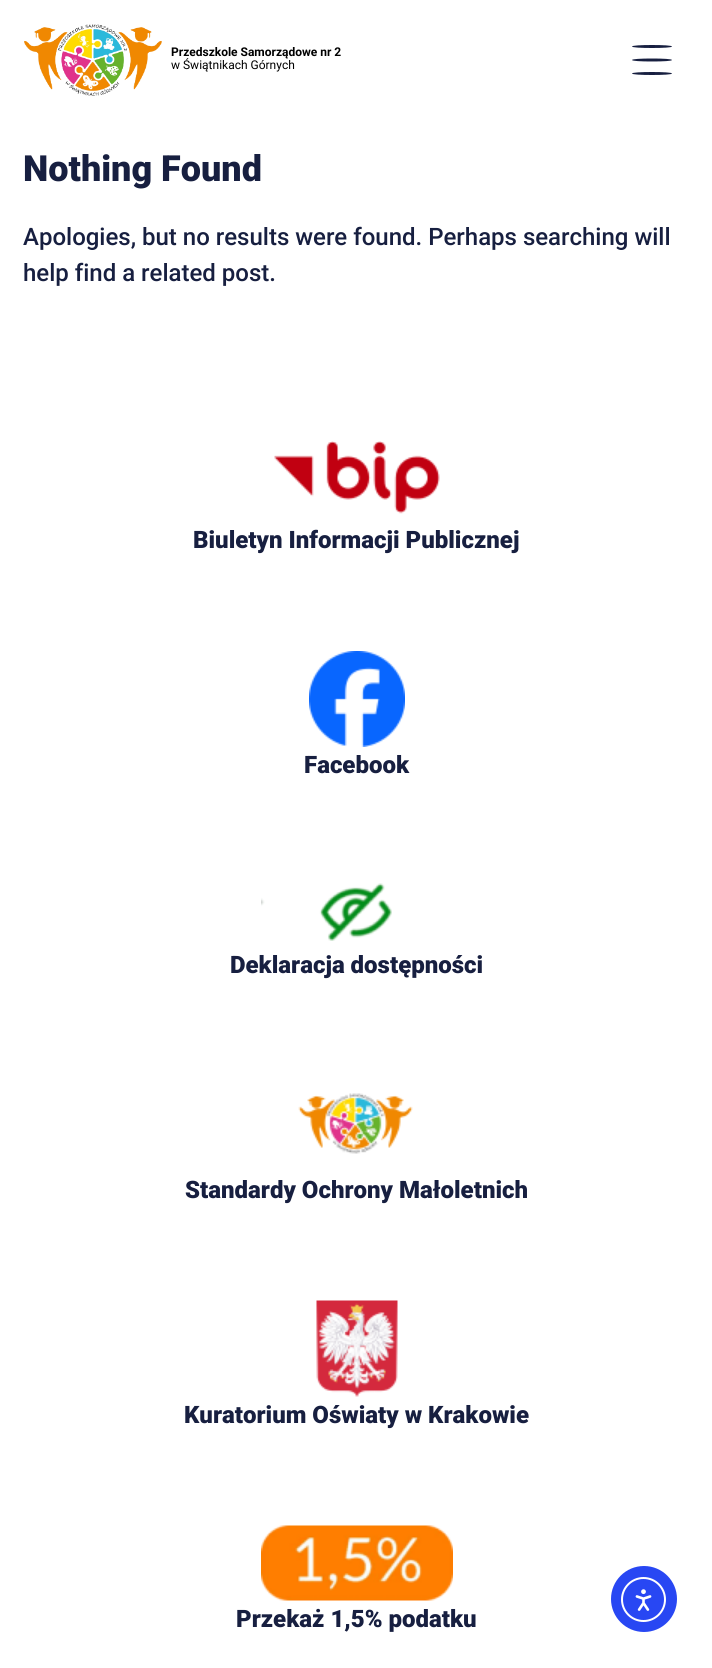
#include <cairo/cairo.h>
#include <math.h>
#include <stddef.h>


static void draw_image(cairo_t *cr, const char *path, double x, double y, double w, double h) {
  cairo_surface_t *image = cairo_image_surface_create_from_png(path);
  cairo_save(cr);
  cairo_set_source_surface(cr, image, x, y);
  cairo_rectangle(cr, x, y, w, h);
  cairo_fill(cr);
  cairo_restore(cr);
  cairo_surface_destroy(image);
}

static void draw(cairo_t *cr) {
  cairo_set_source_rgb(cr, 1, 1, 1);
  cairo_paint(cr);
  draw_image(cr, "images/1.png", 24, 24, 138, 72);
  cairo_set_source_rgb(cr, 23 / 255.0, 31 / 255.0, 64 / 255.0);
  cairo_new_path(cr);
  cairo_move_to(cr, 652, 45);
  cairo_curve_to(cr, 663, 45, 672, 45.5, 672, 46.5);
  cairo_curve_to(cr, 672, 47.5, 663, 48, 652, 48);
  cairo_curve_to(cr, 641, 48, 632, 47.5, 632, 46.5);
  cairo_curve_to(cr, 632, 45.5, 641, 45, 652, 45);
  cairo_close_path(cr);
  cairo_fill(cr);
  cairo_new_path(cr);
  cairo_move_to(cr, 652, 58.5);
  cairo_curve_to(cr, 663, 58.5, 672, 59, 672, 60);
  cairo_curve_to(cr, 672, 61, 663, 61.5, 652, 61.5);
  cairo_curve_to(cr, 641, 61.5, 632, 61, 632, 60);
  cairo_curve_to(cr, 632, 59, 641, 58.5, 652, 58.5);
  cairo_close_path(cr);
  cairo_fill(cr);
  cairo_new_path(cr);
  cairo_move_to(cr, 652, 72);
  cairo_curve_to(cr, 663, 72, 672, 72.5, 672, 73.5);
  cairo_curve_to(cr, 672, 74.5, 663, 75, 652, 75);
  cairo_curve_to(cr, 641, 75, 632, 74.5, 632, 73.5);
  cairo_curve_to(cr, 632, 72.5, 641, 72, 652, 72);
  cairo_close_path(cr);
  cairo_fill(cr);
  draw_image(cr, "images/2.png", 274, 441, 166, 73);
  draw_image(cr, "images/3.png", 309, 651, 96, 96);
  draw_image(cr, "images/4.png", 261, 883, 131, 58);
  draw_image(cr, "images/5.png", 298, 1093, 115, 61);
  draw_image(cr, "images/6.png", 316, 1300, 82, 97);
  draw_image(cr, "images/7.png", 261, 1525, 192, 76);
  cairo_set_source_rgb(cr, 40 / 255.0, 71 / 255.0, 243 / 255.0);
  cairo_arc(cr, 644, 1599, 33, 0, 2 * M_PI);
  cairo_fill(cr);
  cairo_arc(cr, 643.5, 1599.5, 21.5, 0, 2 * M_PI);
  cairo_set_source_rgb(cr, 1, 1, 1);
  cairo_stroke(cr);
  draw_image(cr, "images/8.png", 635, 1589, 17, 22);
  cairo_select_font_face(cr, "Roboto", CAIRO_FONT_SLANT_NORMAL, CAIRO_FONT_WEIGHT_BOLD);
  cairo_set_font_size(cr, 12);
  cairo_set_source_rgb(cr, 0, 0, 0);
  cairo_move_to(cr, 171, 56);
  cairo_show_text(cr, "Przedszkole Samorządowe nr 2");
  cairo_select_font_face(cr, "Roboto", CAIRO_FONT_SLANT_NORMAL, CAIRO_FONT_WEIGHT_NORMAL);
  cairo_move_to(cr, 171, 69);
  cairo_show_text(cr, "w Świątnikach Górnych");
  cairo_select_font_face(cr, "Roboto Black", CAIRO_FONT_SLANT_NORMAL, CAIRO_FONT_WEIGHT_NORMAL);
  cairo_set_font_size(cr, 36);
  cairo_set_source_rgb(cr, 23 / 255.0, 31 / 255.0, 64 / 255.0);
  cairo_move_to(cr, 23, 181);
  cairo_show_text(cr, "Nothing Found");
  cairo_select_font_face(cr, "Roboto Medium", CAIRO_FONT_SLANT_NORMAL, CAIRO_FONT_WEIGHT_NORMAL);
  cairo_set_font_size(cr, 24);
  cairo_move_to(cr, 23, 245);
  cairo_show_text(cr, "Apologies, but no results were found. Perhaps searching will");
  cairo_move_to(cr, 23, 281);
  cairo_show_text(cr, "help find a related post.");
  cairo_select_font_face(cr, "Roboto Black", CAIRO_FONT_SLANT_NORMAL, CAIRO_FONT_WEIGHT_NORMAL);
  cairo_move_to(cr, 193, 548);
  cairo_show_text(cr, "Biuletyn Informacji Publicznej");
  cairo_move_to(cr, 304, 773);
  cairo_show_text(cr, "Facebook");
  cairo_move_to(cr, 230, 973);
  cairo_show_text(cr, "Deklaracja dostępności");
  cairo_move_to(cr, 185, 1198);
  cairo_show_text(cr, "Standardy Ochrony Małoletnich");
  cairo_move_to(cr, 184, 1423);
  cairo_show_text(cr, "Kuratorium Oświaty w Krakowie");
  cairo_move_to(cr, 236, 1627);
  cairo_show_text(cr, "Przekaż 1,5% podatku");
}

int main(void) {
  cairo_surface_t *surface = cairo_image_surface_create(CAIRO_FORMAT_RGB24, 712, 1668);
  cairo_t *cr = cairo_create(surface);
  cairo_font_options_t *options = cairo_font_options_create();
  cairo_font_options_set_hint_metrics(options, CAIRO_HINT_METRICS_OFF);
  cairo_font_options_set_hint_style(options, CAIRO_HINT_STYLE_NONE);
  cairo_set_font_options(cr, options);
  cairo_set_miter_limit(cr, 4);
  draw(cr);
  cairo_surface_write_to_png(surface, "out.png");
  cairo_font_options_destroy(options);
  cairo_destroy(cr);
  cairo_surface_destroy(surface);
  return 0;
}
